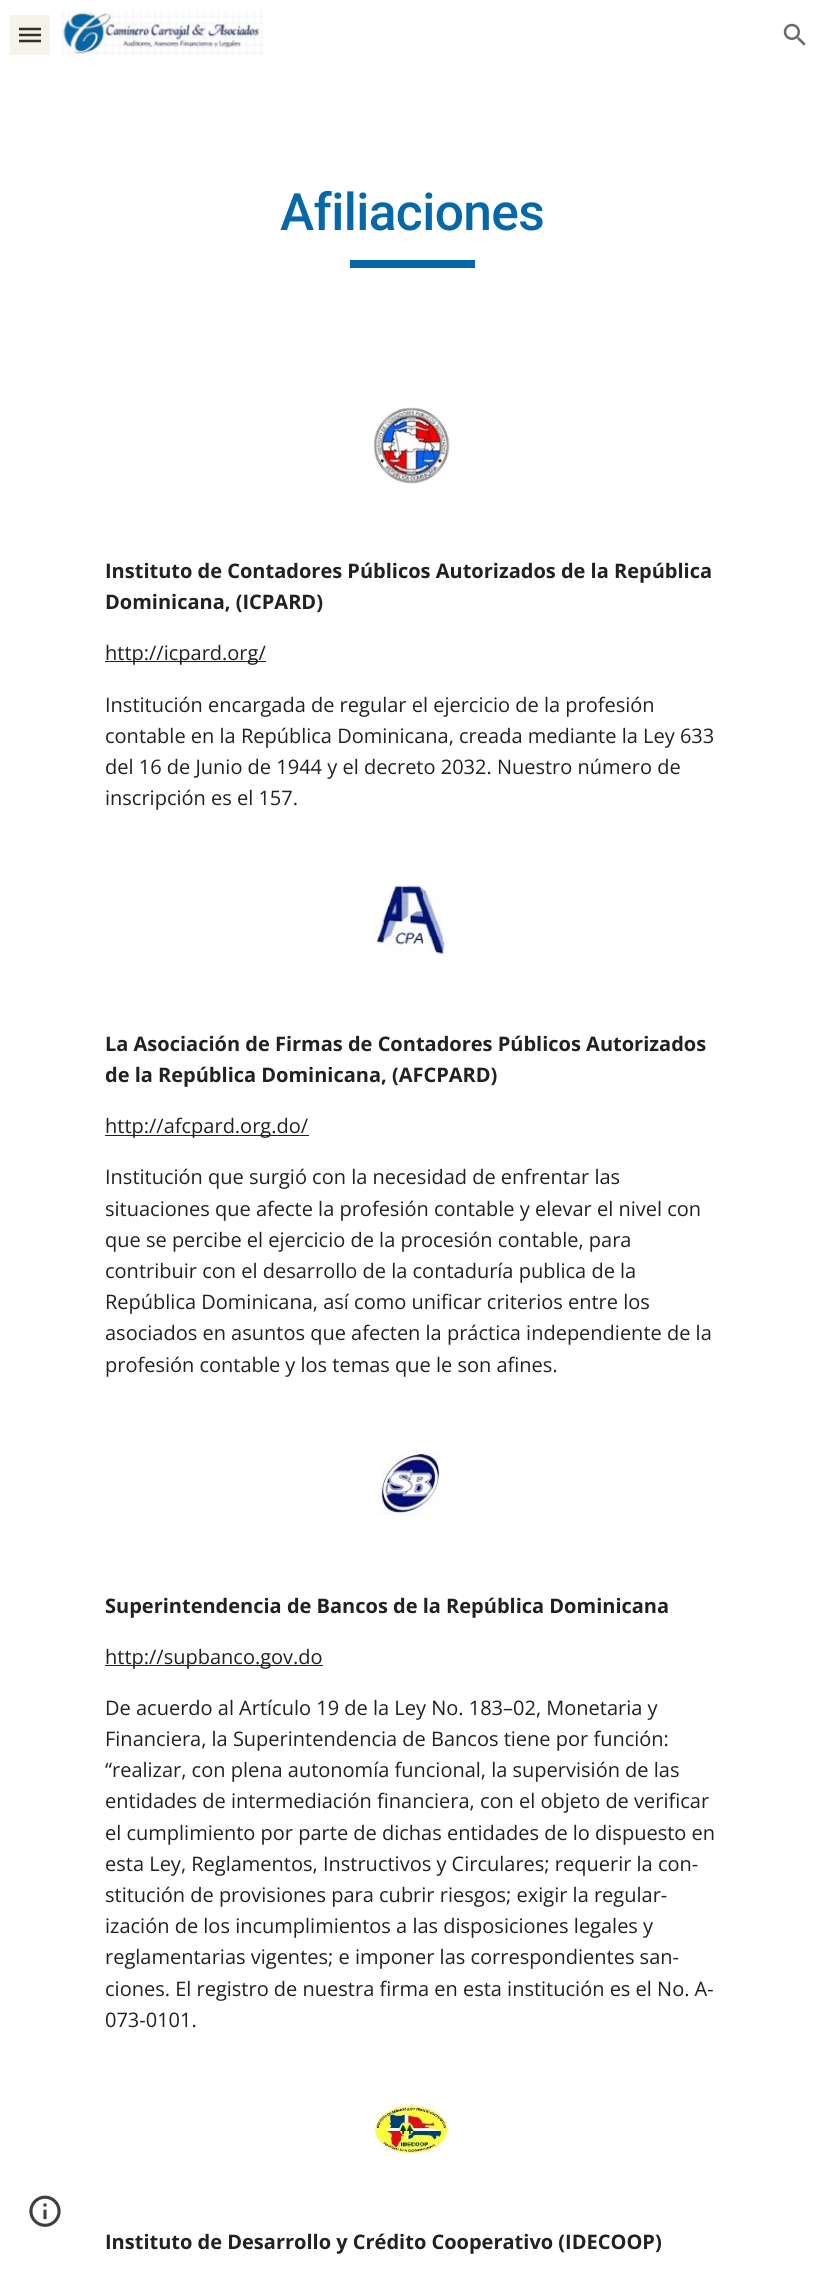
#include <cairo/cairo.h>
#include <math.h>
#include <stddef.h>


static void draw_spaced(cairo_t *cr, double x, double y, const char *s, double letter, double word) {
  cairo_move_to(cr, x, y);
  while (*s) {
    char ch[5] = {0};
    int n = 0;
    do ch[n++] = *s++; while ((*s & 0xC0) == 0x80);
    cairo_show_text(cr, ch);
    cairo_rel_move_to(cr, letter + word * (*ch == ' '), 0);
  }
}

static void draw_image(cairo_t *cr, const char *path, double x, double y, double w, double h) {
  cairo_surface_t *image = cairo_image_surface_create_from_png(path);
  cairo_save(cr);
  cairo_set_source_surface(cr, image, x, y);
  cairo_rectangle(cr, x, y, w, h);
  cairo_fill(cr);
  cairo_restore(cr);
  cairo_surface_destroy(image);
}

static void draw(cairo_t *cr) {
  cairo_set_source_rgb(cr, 1, 1, 1);
  cairo_paint(cr);
  cairo_set_source_rgb(cr, 246 / 255.0, 243 / 255.0, 234 / 255.0);
  cairo_rectangle(cr, 10, 15, 40, 40);
  cairo_fill(cr);
  cairo_new_path(cr);
  cairo_move_to(cr, 19, 29);
  cairo_line_to(cr, 41, 29);
  cairo_move_to(cr, 19, 35);
  cairo_line_to(cr, 41, 35);
  cairo_move_to(cr, 19, 41);
  cairo_line_to(cr, 41, 41);
  cairo_set_source_rgb(cr, 51 / 255.0, 47 / 255.0, 39 / 255.0);
  cairo_set_line_width(cr, 2.5);
  cairo_stroke(cr);
  draw_image(cr, "images/1.png", 60, 10, 204, 46);
  draw_image(cr, "images/2.png", 783, 23, 23, 23);
  draw_image(cr, "images/3.png", 29, 2195, 32, 32);
  cairo_set_source_rgb(cr, 6 / 255.0, 104 / 255.0, 169 / 255.0);
  cairo_rectangle(cr, 350, 260, 125, 8);
  cairo_fill(cr);
  draw_image(cr, "images/4.png", 373, 407, 77, 77);
  cairo_set_source_rgb(cr, 33 / 255.0, 33 / 255.0, 33 / 255.0);
  cairo_rectangle(cr, 105, 661, 161, 1);
  cairo_fill(cr);
  draw_image(cr, "images/5.png", 374, 884, 76, 71);
  cairo_rectangle(cr, 105, 1135, 204, 1);
  cairo_fill(cr);
  draw_image(cr, "images/6.png", 374, 1450, 66, 66);
  cairo_rectangle(cr, 105, 1665, 218, 1);
  cairo_fill(cr);
  draw_image(cr, "images/7.png", 374, 2105, 77, 50);
  cairo_select_font_face(cr, "Roboto Medium", CAIRO_FONT_SLANT_NORMAL, CAIRO_FONT_WEIGHT_NORMAL);
  cairo_set_font_size(cr, 51.5);
  cairo_set_source_rgb(cr, 6 / 255.0, 104 / 255.0, 169 / 255.0);
  draw_spaced(cr, 280, 230, "Afiliaciones", -0.6, 0);
  cairo_select_font_face(cr, "Open Sans", CAIRO_FONT_SLANT_NORMAL, CAIRO_FONT_WEIGHT_BOLD);
  cairo_set_font_size(cr, 20);
  cairo_set_source_rgb(cr, 33 / 255.0, 33 / 255.0, 33 / 255.0);
  cairo_move_to(cr, 105, 578);
  cairo_show_text(cr, "Instituto de Contadores Públicos Autorizados de la República");
  cairo_move_to(cr, 105, 609);
  cairo_show_text(cr, "Dominicana, (ICPARD)");
  cairo_select_font_face(cr, "Open Sans", CAIRO_FONT_SLANT_NORMAL, CAIRO_FONT_WEIGHT_NORMAL);
  cairo_move_to(cr, 105, 660);
  cairo_show_text(cr, "http://icpard.org/");
  cairo_move_to(cr, 105, 712);
  cairo_show_text(cr, "Institución encargada de regular el ejercicio de la profesión");
  cairo_move_to(cr, 105, 743);
  cairo_show_text(cr, "contable en la República Dominicana, creada mediante la Ley 633");
  cairo_move_to(cr, 105, 774);
  cairo_show_text(cr, "del 16 de Junio de 1944 y el decreto 2032. Nuestro número de");
  cairo_move_to(cr, 105, 805);
  cairo_show_text(cr, "inscripción es el 157.");
  cairo_select_font_face(cr, "Open Sans", CAIRO_FONT_SLANT_NORMAL, CAIRO_FONT_WEIGHT_BOLD);
  cairo_move_to(cr, 105, 1051);
  cairo_show_text(cr, "La Asociación de Firmas de Contadores Públicos Autorizados");
  cairo_move_to(cr, 105, 1082);
  cairo_show_text(cr, "de la República Dominicana, (AFCPARD)");
  cairo_select_font_face(cr, "Open Sans", CAIRO_FONT_SLANT_NORMAL, CAIRO_FONT_WEIGHT_NORMAL);
  cairo_move_to(cr, 105, 1133);
  cairo_show_text(cr, "http://afcpard.org.do/");
  cairo_move_to(cr, 105, 1184);
  cairo_show_text(cr, "Institución que surgió con la necesidad de enfrentar las");
  cairo_move_to(cr, 105, 1216);
  cairo_show_text(cr, "situaciones que afecte la profesión contable y elevar el nivel con");
  cairo_move_to(cr, 105, 1247);
  cairo_show_text(cr, "que se percibe el ejercicio de la procesión contable, para");
  cairo_move_to(cr, 105, 1278);
  cairo_show_text(cr, "contribuir con el desarrollo de la contaduría publica de la");
  cairo_move_to(cr, 105, 1309);
  cairo_show_text(cr, "República Dominicana, así como unificar criterios entre los");
  cairo_move_to(cr, 105, 1340);
  cairo_show_text(cr, "asociados en asuntos que afecten la práctica independiente de la");
  cairo_move_to(cr, 105, 1372);
  cairo_show_text(cr, "profesión contable y los temas que le son afines.");
  cairo_select_font_face(cr, "Open Sans", CAIRO_FONT_SLANT_NORMAL, CAIRO_FONT_WEIGHT_BOLD);
  cairo_move_to(cr, 105, 1613);
  cairo_show_text(cr, "Superintendencia de Bancos de la República Dominicana");
  cairo_select_font_face(cr, "Open Sans", CAIRO_FONT_SLANT_NORMAL, CAIRO_FONT_WEIGHT_NORMAL);
  cairo_move_to(cr, 105, 1664);
  cairo_show_text(cr, "http://supbanco.gov.do");
  cairo_move_to(cr, 105, 1715);
  cairo_show_text(cr, "De acuerdo al Artículo 19 de la Ley No. 183–02, Monetaria y");
  cairo_move_to(cr, 105, 1746);
  cairo_show_text(cr, "Financiera, la Superintendencia de Bancos tiene por función:");
  cairo_move_to(cr, 105, 1777);
  cairo_show_text(cr, "“realizar, con plena autonomía funcional, la supervisión de las");
  cairo_move_to(cr, 105, 1808);
  cairo_show_text(cr, "entidades de intermediación financiera, con el objeto de verificar");
  cairo_move_to(cr, 105, 1840);
  cairo_show_text(cr, "el cumplimiento por parte de dichas entidades de lo dispuesto en");
  cairo_move_to(cr, 105, 1871);
  cairo_show_text(cr, "esta Ley, Reglamentos, Instructivos y Circulares; requerir la con-");
  cairo_move_to(cr, 105, 1902);
  cairo_show_text(cr, "stitución de provisiones para cubrir riesgos; exigir la regular-");
  cairo_move_to(cr, 105, 1933);
  cairo_show_text(cr, "ización de los incumplimientos a las disposiciones legales y");
  cairo_move_to(cr, 105, 1964);
  cairo_show_text(cr, "reglamentarias vigentes; e imponer las correspondientes san-");
  cairo_move_to(cr, 105, 1996);
  cairo_show_text(cr, "ciones. El registro de nuestra firma en esta institución es el No. A-");
  cairo_move_to(cr, 105, 2027);
  cairo_show_text(cr, "073-0101.");
  cairo_select_font_face(cr, "Open Sans", CAIRO_FONT_SLANT_NORMAL, CAIRO_FONT_WEIGHT_BOLD);
  cairo_move_to(cr, 105, 2249);
  cairo_show_text(cr, "Instituto de Desarrollo y Crédito Cooperativo (IDECOOP)");
}

int main(void) {
  cairo_surface_t *surface = cairo_image_surface_create(CAIRO_FORMAT_RGB24, 824, 2270);
  cairo_t *cr = cairo_create(surface);
  cairo_font_options_t *options = cairo_font_options_create();
  cairo_font_options_set_hint_metrics(options, CAIRO_HINT_METRICS_OFF);
  cairo_font_options_set_hint_style(options, CAIRO_HINT_STYLE_NONE);
  cairo_set_font_options(cr, options);
  cairo_set_miter_limit(cr, 4);
  draw(cr);
  cairo_surface_write_to_png(surface, "out.png");
  cairo_font_options_destroy(options);
  cairo_destroy(cr);
  cairo_surface_destroy(surface);
  return 0;
}
